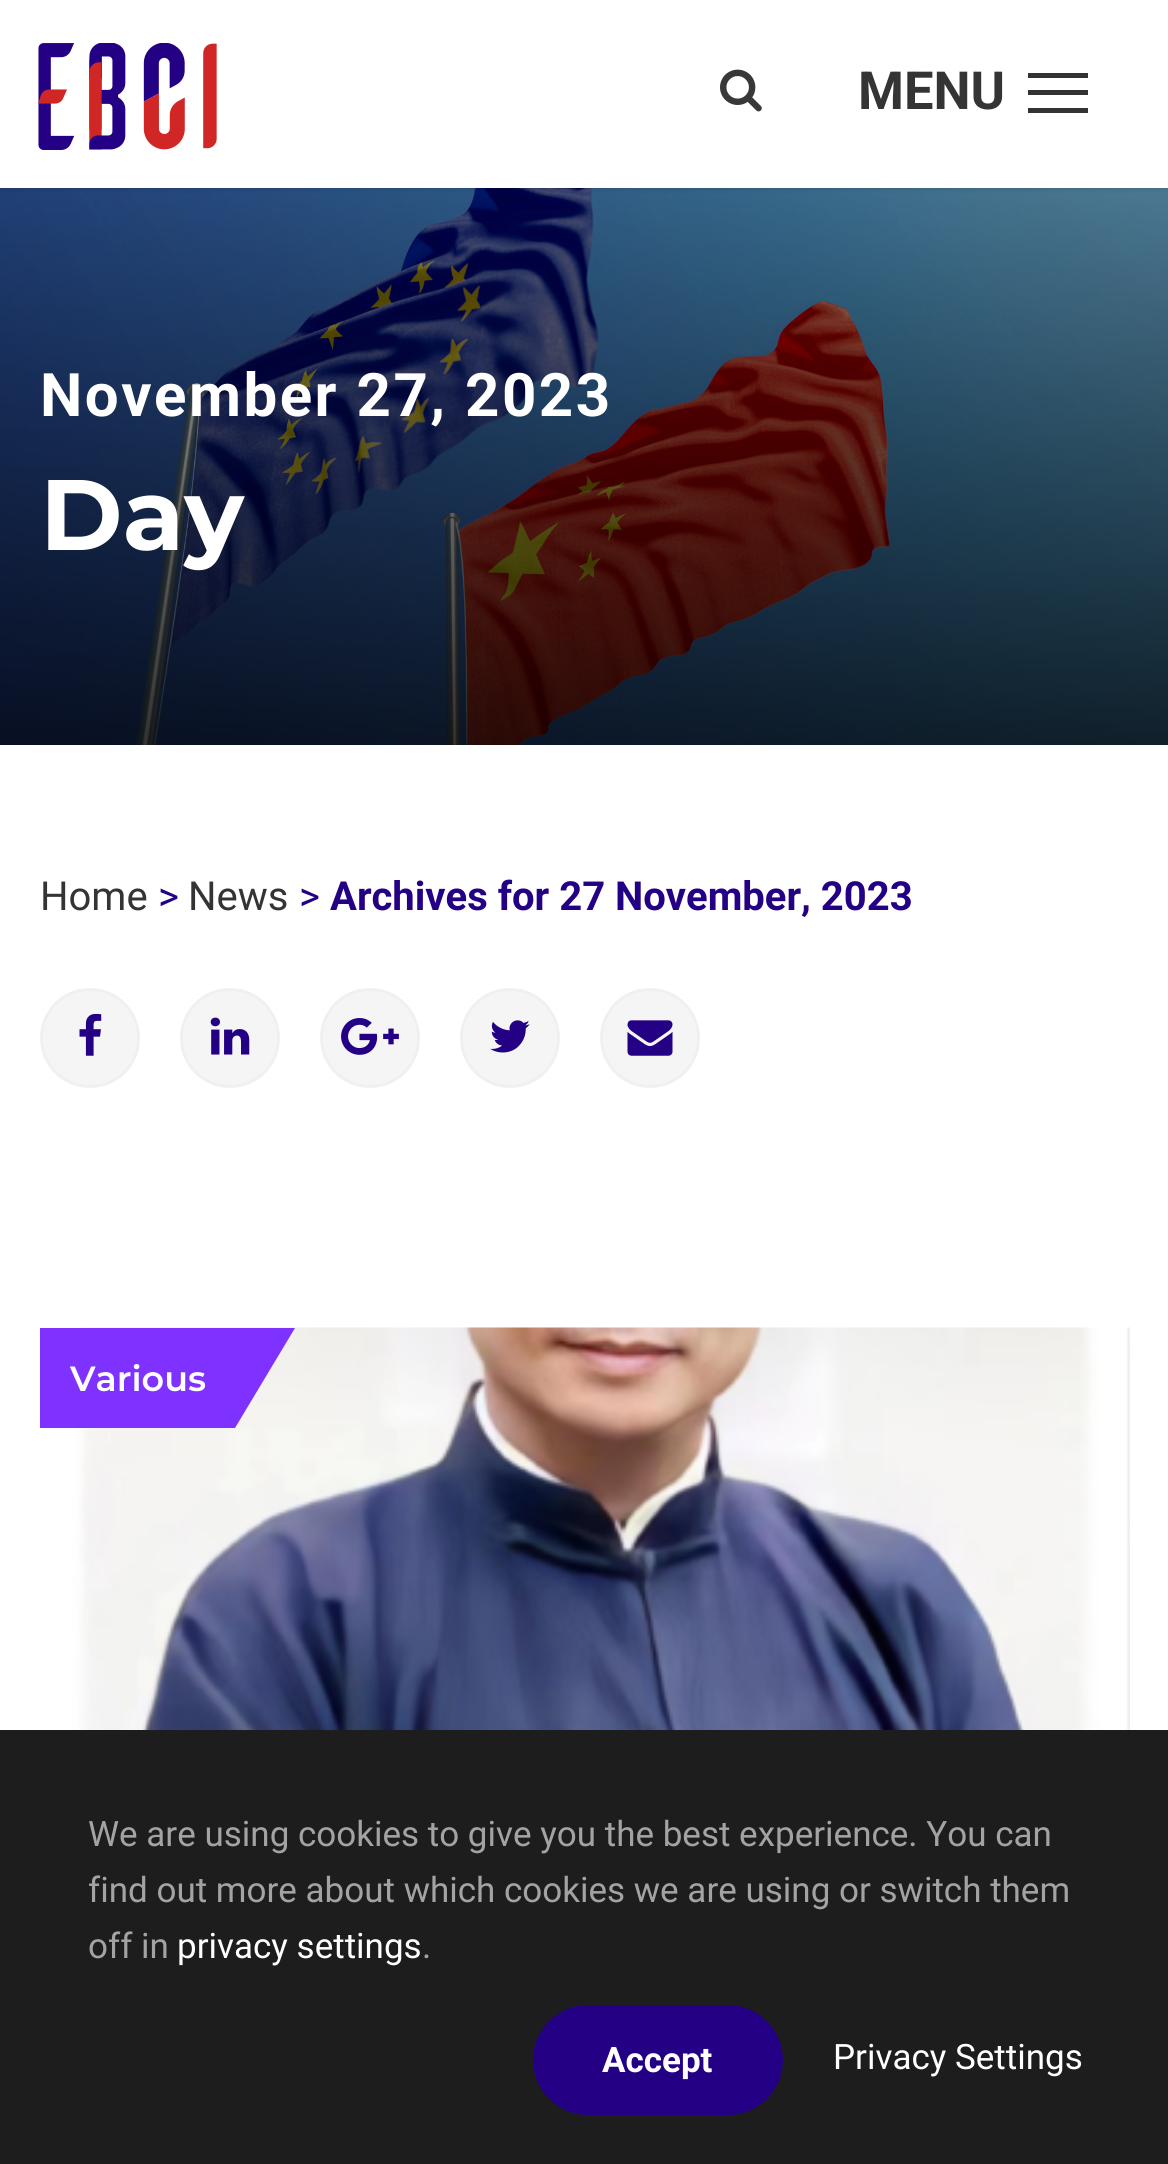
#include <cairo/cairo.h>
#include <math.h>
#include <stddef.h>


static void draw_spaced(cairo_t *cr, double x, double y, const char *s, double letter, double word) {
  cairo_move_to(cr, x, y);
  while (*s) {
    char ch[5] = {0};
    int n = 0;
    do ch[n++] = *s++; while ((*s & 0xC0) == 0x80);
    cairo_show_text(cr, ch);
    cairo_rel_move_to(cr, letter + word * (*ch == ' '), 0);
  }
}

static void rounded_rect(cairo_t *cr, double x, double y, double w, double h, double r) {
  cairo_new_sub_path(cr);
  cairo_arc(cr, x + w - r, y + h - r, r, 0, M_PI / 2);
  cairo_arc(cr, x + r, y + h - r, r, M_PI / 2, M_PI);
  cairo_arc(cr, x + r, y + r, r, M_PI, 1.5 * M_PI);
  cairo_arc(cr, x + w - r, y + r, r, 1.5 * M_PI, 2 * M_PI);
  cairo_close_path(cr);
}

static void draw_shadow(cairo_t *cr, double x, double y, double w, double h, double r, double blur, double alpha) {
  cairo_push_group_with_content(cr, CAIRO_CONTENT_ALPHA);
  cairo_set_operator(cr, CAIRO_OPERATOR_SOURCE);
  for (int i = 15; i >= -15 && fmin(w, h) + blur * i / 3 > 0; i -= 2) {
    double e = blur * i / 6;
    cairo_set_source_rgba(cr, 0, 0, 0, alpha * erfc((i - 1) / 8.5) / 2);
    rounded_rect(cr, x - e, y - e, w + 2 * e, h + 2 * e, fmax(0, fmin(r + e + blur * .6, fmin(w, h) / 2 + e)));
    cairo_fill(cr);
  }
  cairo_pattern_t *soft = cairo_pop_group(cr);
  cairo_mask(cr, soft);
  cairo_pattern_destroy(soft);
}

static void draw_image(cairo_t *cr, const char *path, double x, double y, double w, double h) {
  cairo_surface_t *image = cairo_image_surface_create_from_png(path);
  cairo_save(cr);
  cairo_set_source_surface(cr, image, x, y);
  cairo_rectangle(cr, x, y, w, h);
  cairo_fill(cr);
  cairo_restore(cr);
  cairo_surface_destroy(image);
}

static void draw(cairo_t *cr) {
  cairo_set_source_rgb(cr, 1, 1, 1);
  cairo_paint(cr);
  draw_image(cr, "images/3.png", 0, 188, 1168, 557);
  cairo_set_source_rgb(cr, 0, 0, 0);
  draw_shadow(cr, 0, 3, 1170, 187, 0, 2.5, 0.1);
  cairo_set_source_rgb(cr, 1, 1, 1);
  cairo_rectangle(cr, 0, 0, 1168, 188);
  cairo_fill(cr);
  draw_image(cr, "images/1.png", 38, 43, 179, 107);
  draw_image(cr, "images/2.png", 720, 69, 42, 43);
  cairo_set_source_rgb(cr, 51 / 255.0, 51 / 255.0, 51 / 255.0);
  cairo_rectangle(cr, 1028, 73, 60, 5);
  cairo_fill(cr);
  cairo_rectangle(cr, 1028, 90, 60, 5);
  cairo_fill(cr);
  cairo_rectangle(cr, 1028, 108, 60, 5);
  cairo_fill(cr);
  cairo_set_source_rgb(cr, 245 / 255.0, 245 / 255.0, 245 / 255.0);
  cairo_arc(cr, 90, 1038, 48.5, 0, 2 * M_PI);
  cairo_fill_preserve(cr);
  cairo_set_source_rgb(cr, 240 / 255.0, 240 / 255.0, 240 / 255.0);
  cairo_set_line_width(cr, 3);
  cairo_stroke(cr);
  draw_image(cr, "images/4.png", 79, 1013, 23, 43);
  cairo_set_source_rgb(cr, 245 / 255.0, 245 / 255.0, 245 / 255.0);
  cairo_arc(cr, 230, 1038, 48.5, 0, 2 * M_PI);
  cairo_fill_preserve(cr);
  cairo_set_source_rgb(cr, 240 / 255.0, 240 / 255.0, 240 / 255.0);
  cairo_stroke(cr);
  draw_image(cr, "images/5.png", 210, 1017, 40, 38);
  cairo_set_source_rgb(cr, 245 / 255.0, 245 / 255.0, 245 / 255.0);
  cairo_arc(cr, 370, 1038, 48.5, 0, 2 * M_PI);
  cairo_fill_preserve(cr);
  cairo_set_source_rgb(cr, 240 / 255.0, 240 / 255.0, 240 / 255.0);
  cairo_stroke(cr);
  draw_image(cr, "images/6.png", 341, 1018, 58, 37);
  cairo_set_source_rgb(cr, 245 / 255.0, 245 / 255.0, 245 / 255.0);
  cairo_arc(cr, 510, 1038, 48.5, 0, 2 * M_PI);
  cairo_fill_preserve(cr);
  cairo_set_source_rgb(cr, 240 / 255.0, 240 / 255.0, 240 / 255.0);
  cairo_stroke(cr);
  draw_image(cr, "images/7.png", 490, 1020, 40, 33);
  cairo_set_source_rgb(cr, 245 / 255.0, 245 / 255.0, 245 / 255.0);
  cairo_arc(cr, 650, 1038, 48.5, 0, 2 * M_PI);
  cairo_fill_preserve(cr);
  cairo_set_source_rgb(cr, 240 / 255.0, 240 / 255.0, 240 / 255.0);
  cairo_stroke(cr);
  draw_image(cr, "images/8.png", 627, 1020, 46, 36);
  draw_image(cr, "images/9.png", 40, 1327, 1090, 403);
  cairo_set_source_rgb(cr, 127 / 255.0, 50 / 255.0, 1);
  cairo_rectangle(cr, 40, 1328, 195, 100);
  cairo_fill(cr);
  cairo_new_path(cr);
  cairo_move_to(cr, 235, 1328);
  cairo_line_to(cr, 295, 1328);
  cairo_line_to(cr, 235, 1428);
  cairo_close_path(cr);
  cairo_fill(cr);
  cairo_set_source_rgb(cr, 29 / 255.0, 29 / 255.0, 29 / 255.0);
  cairo_rectangle(cr, 0, 1730, 1168, 434);
  cairo_fill(cr);
  cairo_set_source_rgb(cr, 36 / 255.0, 0, 133 / 255.0);
  rounded_rect(cr, 533, 2005, 250, 110, 55);
  cairo_fill(cr);
  cairo_select_font_face(cr, "Roboto", CAIRO_FONT_SLANT_NORMAL, CAIRO_FONT_WEIGHT_BOLD);
  cairo_set_font_size(cr, 52.5);
  cairo_set_source_rgb(cr, 52 / 255.0, 52 / 255.0, 52 / 255.0);
  cairo_move_to(cr, 858, 109);
  cairo_show_text(cr, "MENU");
  cairo_set_font_size(cr, 60);
  cairo_set_source_rgb(cr, 1, 1, 1);
  draw_spaced(cr, 40, 416, "November 27, 2023", 2.5, 0);
  cairo_select_font_face(cr, "Montserrat", CAIRO_FONT_SLANT_NORMAL, CAIRO_FONT_WEIGHT_BOLD);
  cairo_set_font_size(cr, 100);
  cairo_move_to(cr, 40, 550);
  cairo_show_text(cr, "Day");
  cairo_select_font_face(cr, "Roboto", CAIRO_FONT_SLANT_NORMAL, CAIRO_FONT_WEIGHT_NORMAL);
  cairo_set_font_size(cr, 40);
  cairo_set_source_rgb(cr, 52 / 255.0, 52 / 255.0, 52 / 255.0);
  cairo_move_to(cr, 40, 910);
  cairo_show_text(cr, "Home");
  cairo_set_source_rgb(cr, 36 / 255.0, 0, 133 / 255.0);
  cairo_move_to(cr, 158, 910);
  cairo_show_text(cr, ">");
  cairo_set_source_rgb(cr, 52 / 255.0, 52 / 255.0, 52 / 255.0);
  cairo_move_to(cr, 188, 910);
  cairo_show_text(cr, "News");
  cairo_set_source_rgb(cr, 36 / 255.0, 0, 133 / 255.0);
  cairo_move_to(cr, 299, 910);
  cairo_show_text(cr, ">");
  cairo_select_font_face(cr, "Roboto", CAIRO_FONT_SLANT_NORMAL, CAIRO_FONT_WEIGHT_BOLD);
  cairo_move_to(cr, 330, 910);
  cairo_show_text(cr, "Archives for 27 November, 2023");
  cairo_select_font_face(cr, "Montserrat SemiBold", CAIRO_FONT_SLANT_NORMAL, CAIRO_FONT_WEIGHT_NORMAL);
  cairo_set_font_size(cr, 35);
  cairo_set_source_rgb(cr, 1, 1, 1);
  cairo_move_to(cr, 70, 1391);
  cairo_show_text(cr, "Various");
  cairo_select_font_face(cr, "Roboto", CAIRO_FONT_SLANT_NORMAL, CAIRO_FONT_WEIGHT_NORMAL);
  cairo_set_source_rgb(cr, 163 / 255.0, 163 / 255.0, 163 / 255.0);
  cairo_move_to(cr, 88, 1846);
  cairo_show_text(cr, "We are using cookies to give you the best experience. You can");
  cairo_move_to(cr, 88, 1902);
  cairo_show_text(cr, "find out more about which cookies we are using or switch them");
  cairo_move_to(cr, 88, 1958);
  cairo_show_text(cr, "off in");
  cairo_set_source_rgb(cr, 1, 1, 1);
  cairo_move_to(cr, 177, 1958);
  cairo_show_text(cr, "privacy settings");
  cairo_set_source_rgb(cr, 163 / 255.0, 163 / 255.0, 163 / 255.0);
  cairo_move_to(cr, 422, 1958);
  cairo_show_text(cr, ".");
  cairo_select_font_face(cr, "Roboto", CAIRO_FONT_SLANT_NORMAL, CAIRO_FONT_WEIGHT_BOLD);
  cairo_set_source_rgb(cr, 1, 1, 1);
  cairo_move_to(cr, 602, 2072);
  cairo_show_text(cr, "Accept");
  cairo_select_font_face(cr, "Roboto", CAIRO_FONT_SLANT_NORMAL, CAIRO_FONT_WEIGHT_NORMAL);
  cairo_move_to(cr, 833, 2069);
  cairo_show_text(cr, "Privacy Settings");
}

int main(void) {
  cairo_surface_t *surface = cairo_image_surface_create(CAIRO_FORMAT_RGB24, 1168, 2164);
  cairo_t *cr = cairo_create(surface);
  cairo_font_options_t *options = cairo_font_options_create();
  cairo_font_options_set_hint_metrics(options, CAIRO_HINT_METRICS_OFF);
  cairo_font_options_set_hint_style(options, CAIRO_HINT_STYLE_NONE);
  cairo_set_font_options(cr, options);
  cairo_set_miter_limit(cr, 4);
  draw(cr);
  cairo_surface_write_to_png(surface, "out.png");
  cairo_font_options_destroy(options);
  cairo_destroy(cr);
  cairo_surface_destroy(surface);
  return 0;
}
